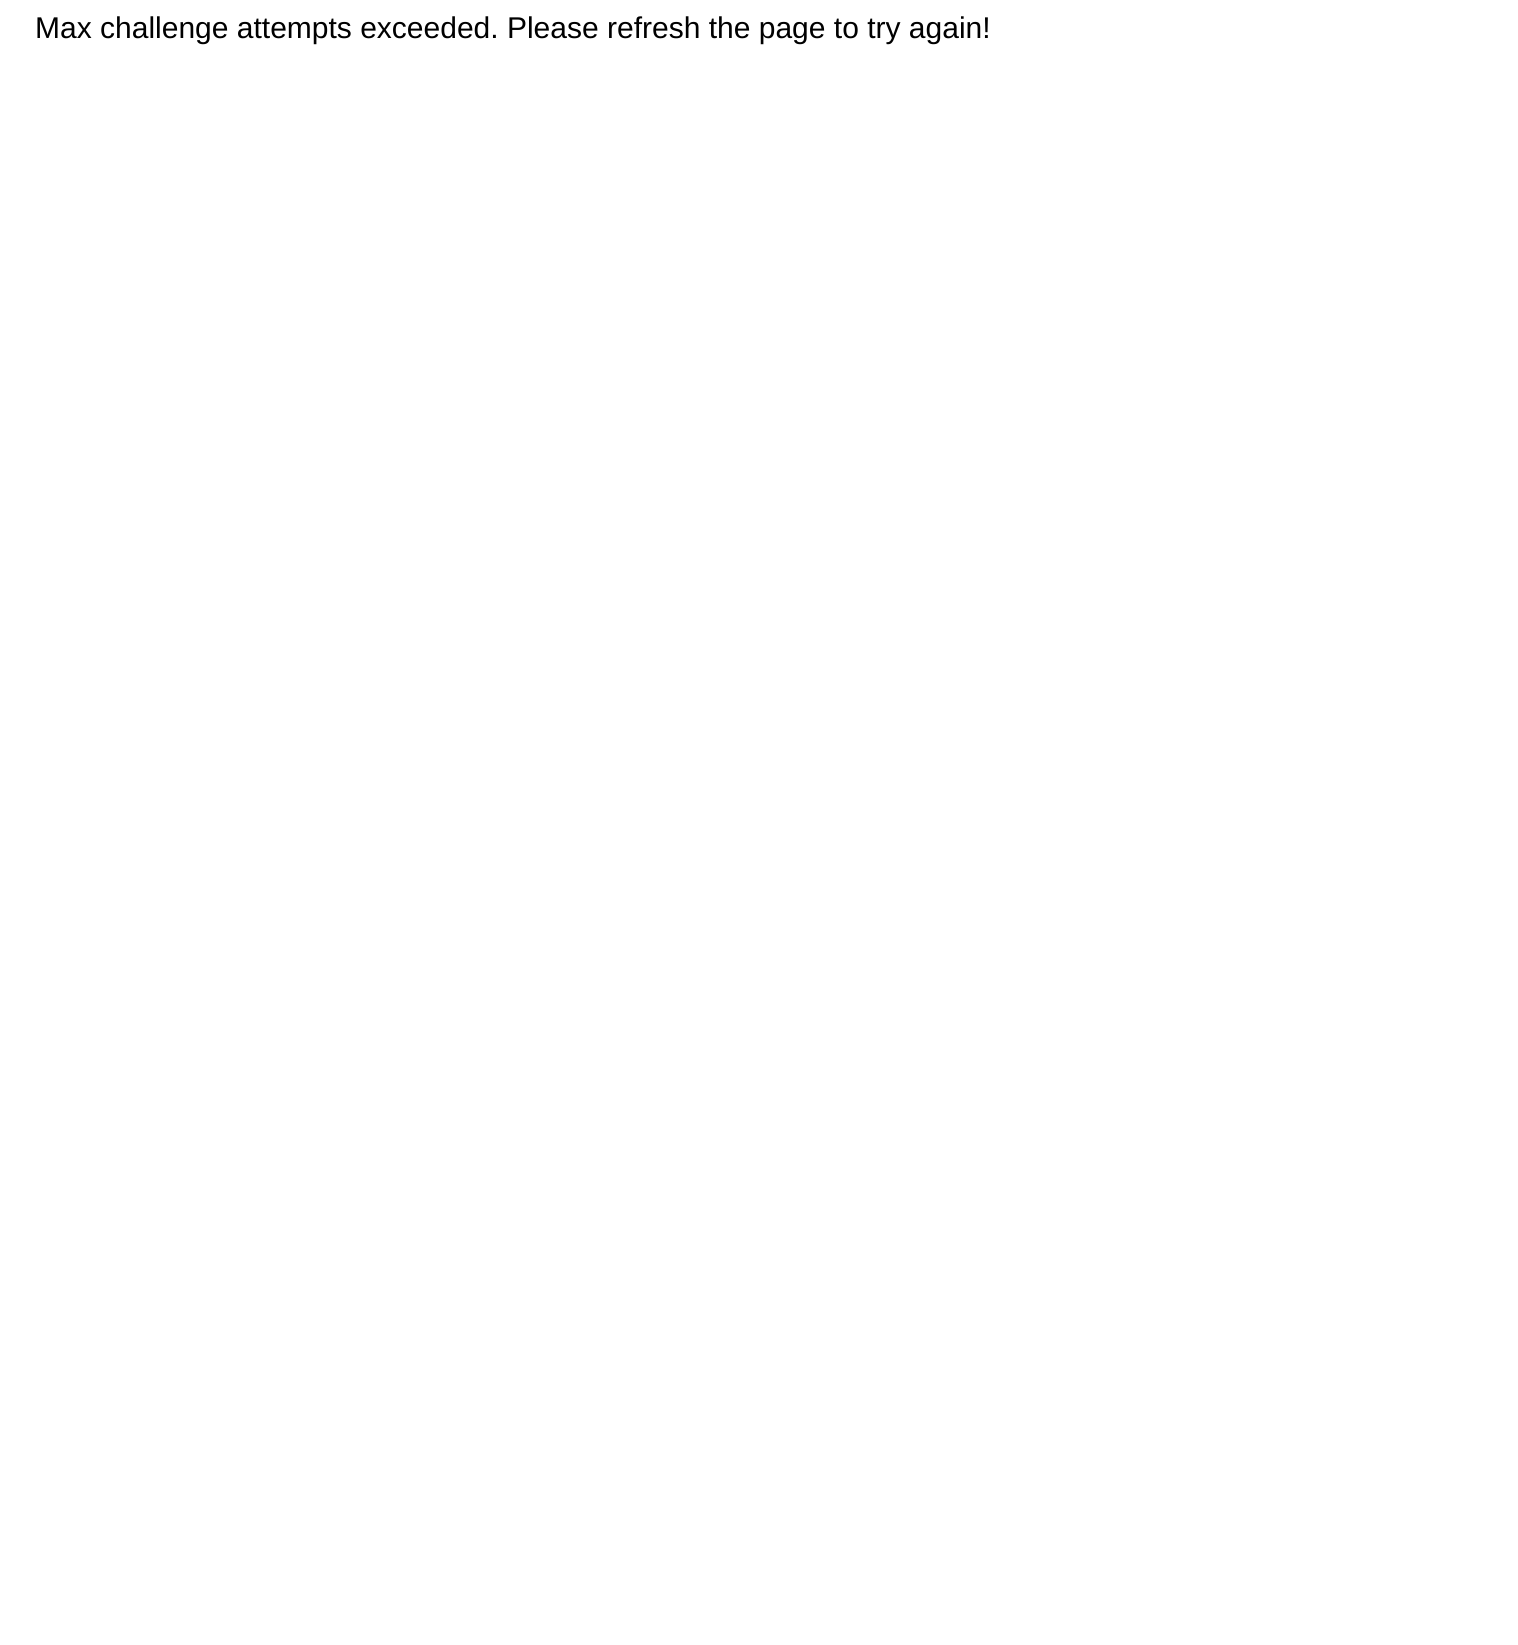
#include <cairo/cairo.h>
#include <math.h>
#include <stddef.h>


static void draw(cairo_t *cr) {
  cairo_set_source_rgb(cr, 1, 1, 1);
  cairo_paint(cr);
  cairo_select_font_face(cr, "Liberation Sans", CAIRO_FONT_SLANT_NORMAL, CAIRO_FONT_WEIGHT_NORMAL);
  cairo_set_font_size(cr, 30);
  cairo_set_source_rgb(cr, 0, 0, 0);
  cairo_move_to(cr, 35, 38);
  cairo_show_text(cr, "Max challenge attempts exceeded. Please refresh the page to try again!");
}

int main(void) {
  cairo_surface_t *surface = cairo_image_surface_create(CAIRO_FORMAT_RGB24, 1518, 1645);
  cairo_t *cr = cairo_create(surface);
  cairo_font_options_t *options = cairo_font_options_create();
  cairo_font_options_set_hint_metrics(options, CAIRO_HINT_METRICS_OFF);
  cairo_font_options_set_hint_style(options, CAIRO_HINT_STYLE_NONE);
  cairo_set_font_options(cr, options);
  cairo_set_miter_limit(cr, 4);
  draw(cr);
  cairo_surface_write_to_png(surface, "out.png");
  cairo_font_options_destroy(options);
  cairo_destroy(cr);
  cairo_surface_destroy(surface);
  return 0;
}
